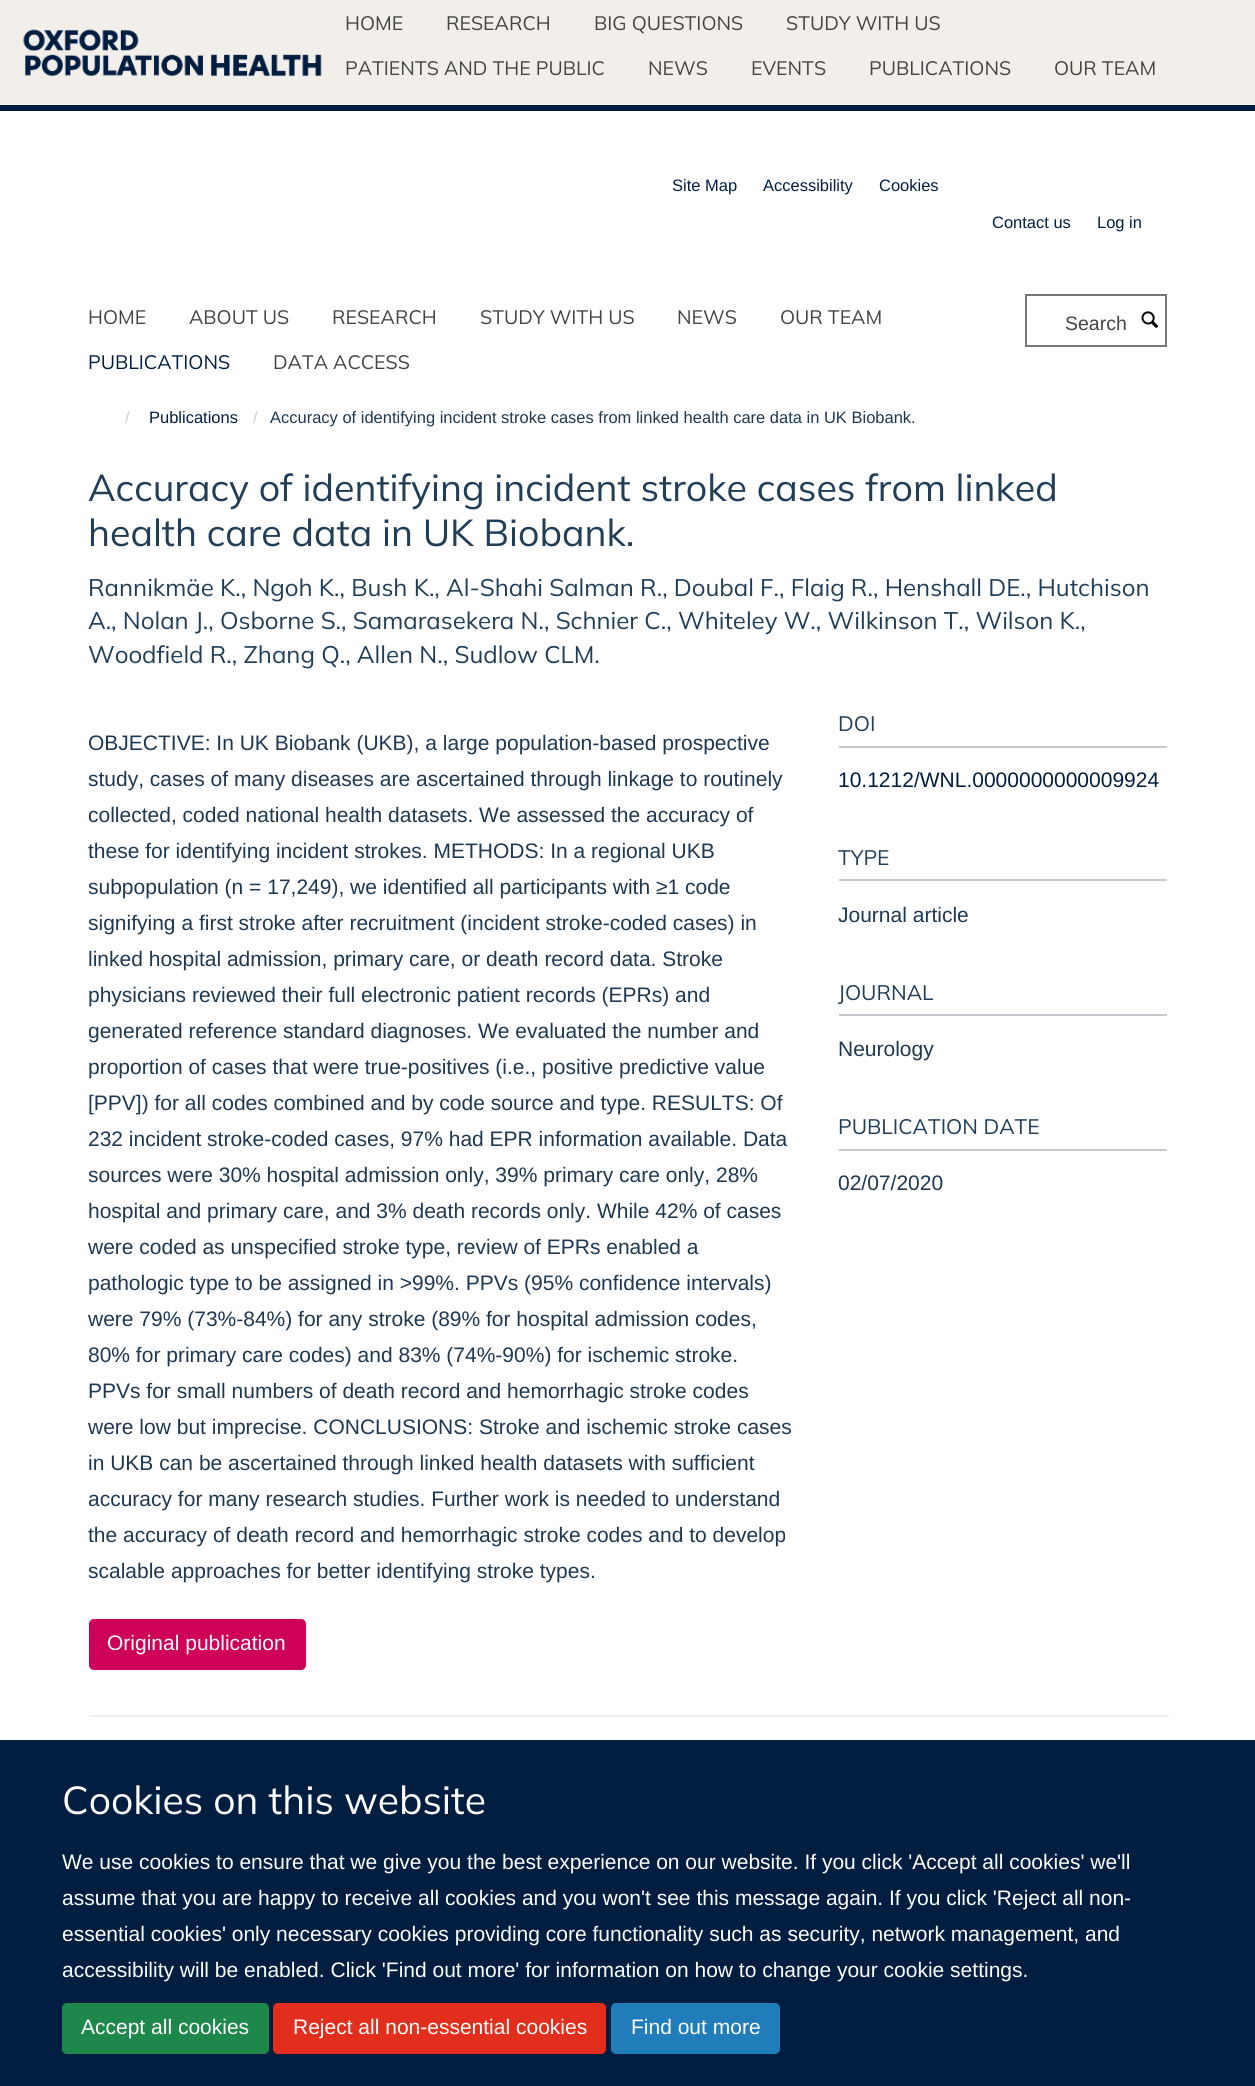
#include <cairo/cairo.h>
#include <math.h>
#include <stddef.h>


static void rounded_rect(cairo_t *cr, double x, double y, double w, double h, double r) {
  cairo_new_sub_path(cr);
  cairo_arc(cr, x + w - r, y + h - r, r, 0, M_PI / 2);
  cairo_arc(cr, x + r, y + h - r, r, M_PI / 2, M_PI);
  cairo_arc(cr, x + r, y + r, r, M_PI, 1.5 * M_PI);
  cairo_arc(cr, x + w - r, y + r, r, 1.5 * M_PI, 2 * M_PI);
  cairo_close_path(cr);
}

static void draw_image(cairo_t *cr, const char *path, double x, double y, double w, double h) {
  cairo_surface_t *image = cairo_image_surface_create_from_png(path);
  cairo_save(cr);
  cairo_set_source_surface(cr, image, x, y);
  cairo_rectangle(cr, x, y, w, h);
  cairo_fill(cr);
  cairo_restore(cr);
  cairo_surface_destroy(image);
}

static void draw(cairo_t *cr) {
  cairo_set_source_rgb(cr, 1, 1, 1);
  cairo_paint(cr);
  cairo_set_source_rgb(cr, 242 / 255.0, 239 / 255.0, 235 / 255.0);
  cairo_rectangle(cr, 0, 0, 1255, 105);
  cairo_fill(cr);
  cairo_set_source_rgb(cr, 1 / 255.0, 30 / 255.0, 65 / 255.0);
  cairo_rectangle(cr, 0, 105, 1255, 6);
  cairo_fill(cr);
  draw_image(cr, "images/1.png", 23, 29, 299, 48);
  cairo_rectangle(cr, 1026, 295, 140, 51);
  cairo_set_source_rgb(cr, 119 / 255.0, 119 / 255.0, 119 / 255.0);
  cairo_stroke(cr);
  draw_image(cr, "images/2.png", 1141, 311, 17, 17);
  cairo_set_source_rgb(cr, 206 / 255.0, 0, 88 / 255.0);
  rounded_rect(cr, 90, 1620, 215, 49, 4);
  cairo_fill_preserve(cr);
  cairo_stroke(cr);
  cairo_set_source_rgb(cr, 198 / 255.0, 202 / 255.0, 207 / 255.0);
  cairo_rectangle(cr, 839, 746, 328, 2);
  cairo_fill(cr);
  cairo_rectangle(cr, 839, 879, 328, 2);
  cairo_fill(cr);
  cairo_rectangle(cr, 839, 1014, 328, 2);
  cairo_fill(cr);
  cairo_rectangle(cr, 839, 1149, 328, 2);
  cairo_fill(cr);
  cairo_set_source_rgb(cr, 238 / 255.0, 238 / 255.0, 238 / 255.0);
  cairo_rectangle(cr, 89, 1715, 1080, 2);
  cairo_fill(cr);
  cairo_set_source_rgb(cr, 1 / 255.0, 30 / 255.0, 65 / 255.0);
  cairo_rectangle(cr, 0, 1740, 1255, 346);
  cairo_fill(cr);
  cairo_set_source_rgb(cr, 30 / 255.0, 135 / 255.0, 75 / 255.0);
  rounded_rect(cr, 63, 2004, 205, 49, 4);
  cairo_fill_preserve(cr);
  cairo_stroke(cr);
  cairo_set_source_rgb(cr, 226 / 255.0, 46 / 255.0, 28 / 255.0);
  rounded_rect(cr, 274, 2004, 331, 49, 4);
  cairo_fill_preserve(cr);
  cairo_stroke(cr);
  cairo_set_source_rgb(cr, 33 / 255.0, 124 / 255.0, 186 / 255.0);
  rounded_rect(cr, 612, 2004, 167, 49, 4);
  cairo_fill_preserve(cr);
  cairo_stroke(cr);
  cairo_select_font_face(cr, "Mulish", CAIRO_FONT_SLANT_NORMAL, CAIRO_FONT_WEIGHT_NORMAL);
  cairo_set_font_size(cr, 19.5);
  cairo_set_source_rgb(cr, 68 / 255.0, 68 / 255.0, 68 / 255.0);
  cairo_move_to(cr, 345, 30);
  cairo_show_text(cr, "HOME");
  cairo_move_to(cr, 446, 30);
  cairo_show_text(cr, "RESEARCH");
  cairo_move_to(cr, 594, 30);
  cairo_show_text(cr, "BIG QUESTIONS");
  cairo_move_to(cr, 786, 30);
  cairo_show_text(cr, "STUDY WITH US");
  cairo_move_to(cr, 345, 75);
  cairo_show_text(cr, "PATIENTS AND THE PUBLIC");
  cairo_move_to(cr, 648, 75);
  cairo_show_text(cr, "NEWS");
  cairo_move_to(cr, 751, 75);
  cairo_show_text(cr, "EVENTS");
  cairo_move_to(cr, 869, 75);
  cairo_show_text(cr, "PUBLICATIONS");
  cairo_move_to(cr, 1054, 75);
  cairo_show_text(cr, "OUR TEAM");
  cairo_select_font_face(cr, "Liberation Sans", CAIRO_FONT_SLANT_NORMAL, CAIRO_FONT_WEIGHT_NORMAL);
  cairo_set_font_size(cr, 16.5);
  cairo_set_source_rgb(cr, 1 / 255.0, 30 / 255.0, 65 / 255.0);
  cairo_move_to(cr, 672, 191);
  cairo_show_text(cr, "Site Map");
  cairo_move_to(cr, 763, 191);
  cairo_show_text(cr, "Accessibility");
  cairo_move_to(cr, 879, 191);
  cairo_show_text(cr, "Cookies");
  cairo_move_to(cr, 992, 228);
  cairo_show_text(cr, "Contact us");
  cairo_move_to(cr, 1097, 228);
  cairo_show_text(cr, "Log in");
  cairo_select_font_face(cr, "Mulish", CAIRO_FONT_SLANT_NORMAL, CAIRO_FONT_WEIGHT_NORMAL);
  cairo_set_font_size(cr, 19.5);
  cairo_set_source_rgb(cr, 68 / 255.0, 68 / 255.0, 68 / 255.0);
  cairo_move_to(cr, 88, 324);
  cairo_show_text(cr, "HOME");
  cairo_move_to(cr, 189, 324);
  cairo_show_text(cr, "ABOUT US");
  cairo_move_to(cr, 332, 324);
  cairo_show_text(cr, "RESEARCH");
  cairo_move_to(cr, 480, 324);
  cairo_show_text(cr, "STUDY WITH US");
  cairo_move_to(cr, 677, 324);
  cairo_show_text(cr, "NEWS");
  cairo_move_to(cr, 780, 324);
  cairo_show_text(cr, "OUR TEAM");
  cairo_set_source_rgb(cr, 1 / 255.0, 30 / 255.0, 65 / 255.0);
  cairo_move_to(cr, 88, 369);
  cairo_show_text(cr, "PUBLICATIONS");
  cairo_set_source_rgb(cr, 68 / 255.0, 68 / 255.0, 68 / 255.0);
  cairo_move_to(cr, 273, 369);
  cairo_show_text(cr, "DATA ACCESS");
  cairo_select_font_face(cr, "Liberation Sans", CAIRO_FONT_SLANT_NORMAL, CAIRO_FONT_WEIGHT_NORMAL);
  cairo_move_to(cr, 1065, 330);
  cairo_show_text(cr, "Search");
  cairo_set_font_size(cr, 16.5);
  cairo_set_source_rgb(cr, 204 / 255.0, 204 / 255.0, 204 / 255.0);
  cairo_move_to(cr, 125, 423);
  cairo_show_text(cr, "/");
  cairo_set_source_rgb(cr, 1 / 255.0, 30 / 255.0, 65 / 255.0);
  cairo_move_to(cr, 149, 423);
  cairo_show_text(cr, "Publications");
  cairo_set_source_rgb(cr, 204 / 255.0, 204 / 255.0, 204 / 255.0);
  cairo_move_to(cr, 253, 423);
  cairo_show_text(cr, "/");
  cairo_set_source_rgb(cr, 29 / 255.0, 56 / 255.0, 80 / 255.0);
  cairo_move_to(cr, 270, 423);
  cairo_show_text(cr, "Accuracy of identifying incident stroke cases from linked health care data in UK Biobank.");
  cairo_select_font_face(cr, "Mulish", CAIRO_FONT_SLANT_NORMAL, CAIRO_FONT_WEIGHT_NORMAL);
  cairo_set_font_size(cr, 37.5);
  cairo_set_source_rgb(cr, 32 / 255.0, 62 / 255.0, 88 / 255.0);
  cairo_move_to(cr, 88, 501);
  cairo_show_text(cr, "Accuracy of identifying incident stroke cases from linked");
  cairo_move_to(cr, 88, 546);
  cairo_show_text(cr, "health care data in UK Biobank.");
  cairo_set_font_size(cr, 24);
  cairo_move_to(cr, 88, 596);
  cairo_show_text(cr, "Rannikmäe K., Ngoh K., Bush K., Al-Shahi Salman R., Doubal F., Flaig R., Henshall DE., Hutchison");
  cairo_move_to(cr, 88, 629);
  cairo_show_text(cr, "A., Nolan J., Osborne S., Samarasekera N., Schnier C., Whiteley W., Wilkinson T., Wilson K.,");
  cairo_move_to(cr, 88, 663);
  cairo_show_text(cr, "Woodfield R., Zhang Q., Allen N., Sudlow CLM.");
  cairo_select_font_face(cr, "Liberation Sans", CAIRO_FONT_SLANT_NORMAL, CAIRO_FONT_WEIGHT_NORMAL);
  cairo_set_font_size(cr, 21);
  cairo_set_source_rgb(cr, 29 / 255.0, 56 / 255.0, 80 / 255.0);
  cairo_move_to(cr, 88, 750);
  cairo_show_text(cr, "OBJECTIVE: In UK Biobank (UKB), a large population-based prospective");
  cairo_move_to(cr, 88, 786);
  cairo_show_text(cr, "study, cases of many diseases are ascertained through linkage to routinely");
  cairo_move_to(cr, 88, 822);
  cairo_show_text(cr, "collected, coded national health datasets. We assessed the accuracy of");
  cairo_move_to(cr, 88, 858);
  cairo_show_text(cr, "these for identifying incident strokes. METHODS: In a regional UKB");
  cairo_move_to(cr, 88, 894);
  cairo_show_text(cr, "subpopulation (n = 17,249), we identified all participants with ≥1 code");
  cairo_move_to(cr, 88, 930);
  cairo_show_text(cr, "signifying a first stroke after recruitment (incident stroke-coded cases) in");
  cairo_move_to(cr, 88, 966);
  cairo_show_text(cr, "linked hospital admission, primary care, or death record data. Stroke");
  cairo_move_to(cr, 88, 1002);
  cairo_show_text(cr, "physicians reviewed their full electronic patient records (EPRs) and");
  cairo_move_to(cr, 88, 1038);
  cairo_show_text(cr, "generated reference standard diagnoses. We evaluated the number and");
  cairo_move_to(cr, 88, 1074);
  cairo_show_text(cr, "proportion of cases that were true-positives (i.e., positive predictive value");
  cairo_move_to(cr, 88, 1110);
  cairo_show_text(cr, "[PPV]) for all codes combined and by code source and type. RESULTS: Of");
  cairo_move_to(cr, 88, 1146);
  cairo_show_text(cr, "232 incident stroke-coded cases, 97% had EPR information available. Data");
  cairo_move_to(cr, 88, 1182);
  cairo_show_text(cr, "sources were 30% hospital admission only, 39% primary care only, 28%");
  cairo_move_to(cr, 88, 1218);
  cairo_show_text(cr, "hospital and primary care, and 3% death records only. While 42% of cases");
  cairo_move_to(cr, 88, 1254);
  cairo_show_text(cr, "were coded as unspecified stroke type, review of EPRs enabled a");
  cairo_move_to(cr, 88, 1290);
  cairo_show_text(cr, "pathologic type to be assigned in >99%. PPVs (95% confidence intervals)");
  cairo_move_to(cr, 88, 1326);
  cairo_show_text(cr, "were 79% (73%-84%) for any stroke (89% for hospital admission codes,");
  cairo_move_to(cr, 88, 1362);
  cairo_show_text(cr, "80% for primary care codes) and 83% (74%-90%) for ischemic stroke.");
  cairo_move_to(cr, 88, 1398);
  cairo_show_text(cr, "PPVs for small numbers of death record and hemorrhagic stroke codes");
  cairo_move_to(cr, 88, 1434);
  cairo_show_text(cr, "were low but imprecise. CONCLUSIONS: Stroke and ischemic stroke cases");
  cairo_move_to(cr, 88, 1470);
  cairo_show_text(cr, "in UKB can be ascertained through linked health datasets with sufficient");
  cairo_move_to(cr, 88, 1506);
  cairo_show_text(cr, "accuracy for many research studies. Further work is needed to understand");
  cairo_move_to(cr, 88, 1542);
  cairo_show_text(cr, "the accuracy of death record and hemorrhagic stroke codes and to develop");
  cairo_move_to(cr, 88, 1578);
  cairo_show_text(cr, "scalable approaches for better identifying stroke types.");
  cairo_set_source_rgb(cr, 1, 1, 1);
  cairo_move_to(cr, 107, 1650);
  cairo_show_text(cr, "Original publication");
  cairo_select_font_face(cr, "Mulish", CAIRO_FONT_SLANT_NORMAL, CAIRO_FONT_WEIGHT_NORMAL);
  cairo_set_source_rgb(cr, 32 / 255.0, 62 / 255.0, 88 / 255.0);
  cairo_move_to(cr, 838, 731);
  cairo_show_text(cr, "DOI");
  cairo_select_font_face(cr, "Liberation Sans", CAIRO_FONT_SLANT_NORMAL, CAIRO_FONT_WEIGHT_NORMAL);
  cairo_set_source_rgb(cr, 1 / 255.0, 30 / 255.0, 65 / 255.0);
  cairo_move_to(cr, 838, 787);
  cairo_show_text(cr, "10.1212/WNL.0000000000009924");
  cairo_select_font_face(cr, "Mulish", CAIRO_FONT_SLANT_NORMAL, CAIRO_FONT_WEIGHT_NORMAL);
  cairo_set_source_rgb(cr, 32 / 255.0, 62 / 255.0, 88 / 255.0);
  cairo_move_to(cr, 838, 865);
  cairo_show_text(cr, "TYPE");
  cairo_select_font_face(cr, "Liberation Sans", CAIRO_FONT_SLANT_NORMAL, CAIRO_FONT_WEIGHT_NORMAL);
  cairo_set_source_rgb(cr, 29 / 255.0, 56 / 255.0, 80 / 255.0);
  cairo_move_to(cr, 838, 922);
  cairo_show_text(cr, "Journal article");
  cairo_select_font_face(cr, "Mulish", CAIRO_FONT_SLANT_NORMAL, CAIRO_FONT_WEIGHT_NORMAL);
  cairo_set_source_rgb(cr, 32 / 255.0, 62 / 255.0, 88 / 255.0);
  cairo_move_to(cr, 838, 1000);
  cairo_show_text(cr, "JOURNAL");
  cairo_select_font_face(cr, "Liberation Sans", CAIRO_FONT_SLANT_NORMAL, CAIRO_FONT_WEIGHT_NORMAL);
  cairo_set_source_rgb(cr, 29 / 255.0, 56 / 255.0, 80 / 255.0);
  cairo_move_to(cr, 838, 1056);
  cairo_show_text(cr, "Neurology");
  cairo_select_font_face(cr, "Mulish", CAIRO_FONT_SLANT_NORMAL, CAIRO_FONT_WEIGHT_NORMAL);
  cairo_set_source_rgb(cr, 32 / 255.0, 62 / 255.0, 88 / 255.0);
  cairo_move_to(cr, 838, 1134);
  cairo_show_text(cr, "PUBLICATION DATE");
  cairo_select_font_face(cr, "Liberation Sans", CAIRO_FONT_SLANT_NORMAL, CAIRO_FONT_WEIGHT_NORMAL);
  cairo_set_source_rgb(cr, 29 / 255.0, 56 / 255.0, 80 / 255.0);
  cairo_move_to(cr, 838, 1190);
  cairo_show_text(cr, "02/07/2020");
  cairo_select_font_face(cr, "Mulish", CAIRO_FONT_SLANT_NORMAL, CAIRO_FONT_WEIGHT_NORMAL);
  cairo_set_font_size(cr, 39);
  cairo_set_source_rgb(cr, 1, 1, 1);
  cairo_move_to(cr, 62, 1814);
  cairo_show_text(cr, "Cookies on this website");
  cairo_select_font_face(cr, "Liberation Sans", CAIRO_FONT_SLANT_NORMAL, CAIRO_FONT_WEIGHT_NORMAL);
  cairo_set_font_size(cr, 21);
  cairo_move_to(cr, 62, 1869);
  cairo_show_text(cr, "We use cookies to ensure that we give you the best experience on our website. If you click 'Accept all cookies' we'll");
  cairo_move_to(cr, 62, 1905);
  cairo_show_text(cr, "assume that you are happy to receive all cookies and you won't see this message again. If you click 'Reject all non-");
  cairo_move_to(cr, 62, 1941);
  cairo_show_text(cr, "essential cookies' only necessary cookies providing core functionality such as security, network management, and");
  cairo_move_to(cr, 62, 1977);
  cairo_show_text(cr, "accessibility will be enabled. Click 'Find out more' for information on how to change your cookie settings.");
  cairo_move_to(cr, 81, 2034);
  cairo_show_text(cr, "Accept all cookies");
  cairo_move_to(cr, 293, 2034);
  cairo_show_text(cr, "Reject all non-essential cookies");
  cairo_move_to(cr, 631, 2034);
  cairo_show_text(cr, "Find out more");
}

int main(void) {
  cairo_surface_t *surface = cairo_image_surface_create(CAIRO_FORMAT_RGB24, 1255, 2086);
  cairo_t *cr = cairo_create(surface);
  cairo_font_options_t *options = cairo_font_options_create();
  cairo_font_options_set_hint_metrics(options, CAIRO_HINT_METRICS_OFF);
  cairo_font_options_set_hint_style(options, CAIRO_HINT_STYLE_NONE);
  cairo_set_font_options(cr, options);
  cairo_set_miter_limit(cr, 4);
  draw(cr);
  cairo_surface_write_to_png(surface, "out.png");
  cairo_font_options_destroy(options);
  cairo_destroy(cr);
  cairo_surface_destroy(surface);
  return 0;
}
